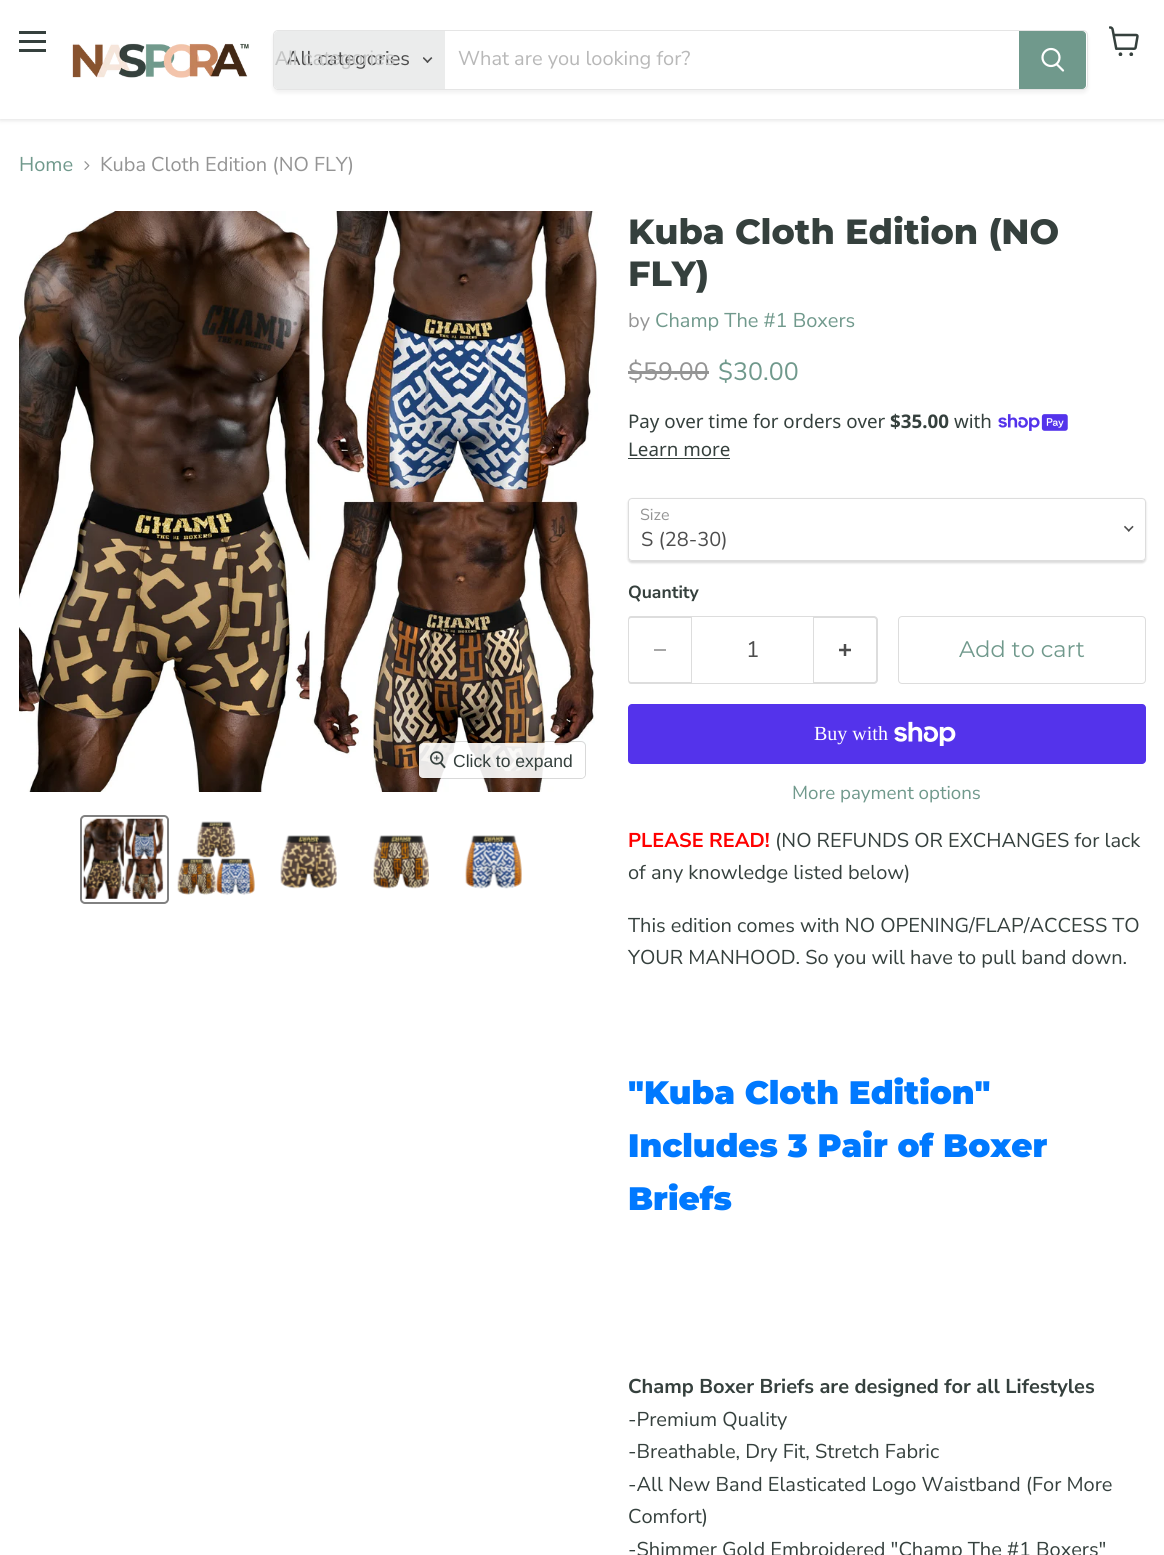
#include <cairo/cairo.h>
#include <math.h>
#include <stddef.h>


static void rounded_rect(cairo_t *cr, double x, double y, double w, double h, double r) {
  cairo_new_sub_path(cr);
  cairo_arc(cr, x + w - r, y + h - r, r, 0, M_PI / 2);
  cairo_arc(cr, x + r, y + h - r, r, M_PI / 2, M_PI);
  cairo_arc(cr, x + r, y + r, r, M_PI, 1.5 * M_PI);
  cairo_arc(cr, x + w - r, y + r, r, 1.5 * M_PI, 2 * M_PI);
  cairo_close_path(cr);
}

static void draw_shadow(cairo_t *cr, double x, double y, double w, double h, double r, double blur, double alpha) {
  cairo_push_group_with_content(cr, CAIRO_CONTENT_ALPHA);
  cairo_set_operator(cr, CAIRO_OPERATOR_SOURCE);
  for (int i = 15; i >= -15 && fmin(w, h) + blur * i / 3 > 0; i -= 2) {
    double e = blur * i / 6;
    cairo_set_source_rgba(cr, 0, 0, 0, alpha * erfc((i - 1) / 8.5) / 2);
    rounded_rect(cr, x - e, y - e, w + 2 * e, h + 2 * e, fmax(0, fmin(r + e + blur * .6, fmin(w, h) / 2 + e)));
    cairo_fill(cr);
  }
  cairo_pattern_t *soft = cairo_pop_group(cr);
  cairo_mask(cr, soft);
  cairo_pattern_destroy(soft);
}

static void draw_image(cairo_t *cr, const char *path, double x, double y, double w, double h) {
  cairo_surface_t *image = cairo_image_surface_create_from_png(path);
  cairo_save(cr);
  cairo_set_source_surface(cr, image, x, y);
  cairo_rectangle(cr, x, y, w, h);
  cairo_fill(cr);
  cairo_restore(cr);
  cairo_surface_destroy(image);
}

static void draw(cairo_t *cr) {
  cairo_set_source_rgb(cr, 1, 1, 1);
  cairo_paint(cr);
  cairo_set_source_rgb(cr, 128 / 255.0, 128 / 255.0, 128 / 255.0);
  draw_shadow(cr, 0, 1, 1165, 119, 0, 2.5, 0.25);
  cairo_set_source_rgb(cr, 1, 1, 1);
  cairo_rectangle(cr, 0, 0, 1164, 119);
  cairo_fill(cr);
  cairo_set_source_rgb(cr, 53 / 255.0, 64 / 255.0, 61 / 255.0);
  cairo_rectangle(cr, 19, 31, 27, 3);
  cairo_fill(cr);
  cairo_rectangle(cr, 19, 40, 27, 3);
  cairo_fill(cr);
  cairo_rectangle(cr, 19, 49, 27, 3);
  cairo_fill(cr);
  draw_image(cr, "images/1.png", 1109, 26, 30, 30);
  draw_image(cr, "images/2.png", 72, 43, 177, 35);
  cairo_save(cr);
  cairo_set_fill_rule(cr, CAIRO_FILL_RULE_EVEN_ODD);
  cairo_new_path(cr);
  cairo_move_to(cr, 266, 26);
  cairo_line_to(cr, 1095, 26);
  cairo_line_to(cr, 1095, 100);
  cairo_line_to(cr, 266, 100);
  cairo_close_path(cr);
  cairo_move_to(cr, 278, 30);
  cairo_line_to(cr, 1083, 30);
  cairo_curve_to(cr, 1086, 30, 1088, 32, 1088, 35);
  cairo_line_to(cr, 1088, 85);
  cairo_curve_to(cr, 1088, 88, 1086, 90, 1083, 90);
  cairo_line_to(cr, 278, 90);
  cairo_curve_to(cr, 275, 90, 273, 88, 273, 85);
  cairo_line_to(cr, 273, 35);
  cairo_curve_to(cr, 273, 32, 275, 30, 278, 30);
  cairo_close_path(cr);
  cairo_clip(cr);
  cairo_set_source_rgb(cr, 128 / 255.0, 128 / 255.0, 128 / 255.0);
  draw_shadow(cr, 273, 33, 815, 60, 5, 2, 0.11);
  cairo_restore(cr);
  rounded_rect(cr, 273.5, 30.5, 814, 59, 4.5);
  cairo_set_source_rgba(cr, 128 / 255.0, 128 / 255.0, 128 / 255.0, 0.2);
  cairo_set_line_width(cr, 1);
  cairo_stroke(cr);
  cairo_set_source_rgb(cr, 235 / 255.0, 236 / 255.0, 236 / 255.0);
  cairo_new_path(cr);
  cairo_move_to(cr, 278, 31);
  cairo_line_to(cr, 445, 31);
  cairo_line_to(cr, 445, 89);
  cairo_line_to(cr, 278, 89);
  cairo_curve_to(cr, 276, 89, 274, 87, 274, 85);
  cairo_line_to(cr, 274, 35);
  cairo_curve_to(cr, 274, 33, 276, 31, 278, 31);
  cairo_close_path(cr);
  cairo_fill(cr);
  draw_image(cr, "images/3.png", 423, 57, 10, 6);
  cairo_set_source_rgb(cr, 112 / 255.0, 153 / 255.0, 140 / 255.0);
  cairo_new_path(cr);
  cairo_move_to(cr, 1019.5, 31.5);
  cairo_line_to(cr, 1082, 31.5);
  cairo_curve_to(cr, 1084, 31.5, 1085.5, 33, 1085.5, 35);
  cairo_line_to(cr, 1085.5, 85);
  cairo_curve_to(cr, 1085.5, 87, 1084, 88.5, 1082, 88.5);
  cairo_line_to(cr, 1019.5, 88.5);
  cairo_close_path(cr);
  cairo_fill_preserve(cr);
  cairo_stroke(cr);
  cairo_new_path(cr);
  cairo_move_to(cr, 1063, 70.5);
  cairo_line_to(cr, 1057, 64.5);
  cairo_set_source_rgb(cr, 1, 1, 1);
  cairo_set_line_width(cr, 2.2);
  cairo_set_line_cap(cr, CAIRO_LINE_CAP_ROUND);
  cairo_stroke(cr);
  cairo_arc(cr, 1051, 57.5, 8.5, 0, 2 * M_PI);
  cairo_set_line_cap(cr, CAIRO_LINE_CAP_BUTT);
  cairo_stroke(cr);
  draw_image(cr, "images/4.png", 84, 161, 6, 9);
  draw_image(cr, "images/5.png", 19, 211, 579, 581);
  rounded_rect(cr, 418.5, 741.5, 167, 37, 4.5);
  cairo_set_source_rgba(cr, 0, 0, 0, 0.15);
  cairo_set_line_width(cr, 1);
  cairo_stroke(cr);
  cairo_set_source_rgba(cr, 1, 1, 1, 0.9);
  rounded_rect(cr, 419, 743, 166, 35, 4);
  cairo_fill(cr);
  draw_image(cr, "images/6.png", 430, 751, 16, 18);
  rounded_rect(cr, 81, 816, 87, 87, 4);
  cairo_set_source_rgb(cr, 129 / 255.0, 129 / 255.0, 129 / 255.0);
  cairo_set_line_width(cr, 2);
  cairo_stroke(cr);
  draw_image(cr, "images/7.png", 83, 818, 81, 81);
  draw_image(cr, "images/8.png", 177, 821, 78, 74);
  draw_image(cr, "images/9.png", 280, 835, 57, 54);
  draw_image(cr, "images/10.png", 373, 835, 56, 54);
  draw_image(cr, "images/11.png", 465, 835, 57, 54);
  cairo_set_source_rgb(cr, 148 / 255.0, 148 / 255.0, 148 / 255.0);
  cairo_rectangle(cr, 628, 371, 81, 3);
  cairo_fill(cr);
  draw_image(cr, "images/12.png", 998, 414, 70, 17);
  cairo_set_source_rgb(cr, 53 / 255.0, 64 / 255.0, 61 / 255.0);
  cairo_rectangle(cr, 628, 458, 102, 1);
  cairo_fill(cr);
  cairo_save(cr);
  cairo_set_fill_rule(cr, CAIRO_FILL_RULE_EVEN_ODD);
  cairo_new_path(cr);
  cairo_move_to(cr, 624, 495);
  cairo_line_to(cr, 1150, 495);
  cairo_line_to(cr, 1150, 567);
  cairo_line_to(cr, 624, 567);
  cairo_close_path(cr);
  cairo_move_to(cr, 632, 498);
  cairo_line_to(cr, 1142, 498);
  cairo_curve_to(cr, 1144, 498, 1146, 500, 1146, 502);
  cairo_line_to(cr, 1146, 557);
  cairo_curve_to(cr, 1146, 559, 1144, 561, 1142, 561);
  cairo_line_to(cr, 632, 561);
  cairo_curve_to(cr, 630, 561, 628, 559, 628, 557);
  cairo_line_to(cr, 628, 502);
  cairo_curve_to(cr, 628, 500, 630, 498, 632, 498);
  cairo_close_path(cr);
  cairo_clip(cr);
  cairo_set_source_rgb(cr, 0, 0, 0);
  draw_shadow(cr, 628, 499, 518, 64, 4, 1, 0.15);
  cairo_restore(cr);
  rounded_rect(cr, 628.5, 498.5, 517, 62, 3.5);
  cairo_set_source_rgb(cr, 221 / 255.0, 221 / 255.0, 221 / 255.0);
  cairo_set_line_width(cr, 1);
  cairo_stroke(cr);
  draw_image(cr, "images/13.png", 1124, 525, 10, 7);
  cairo_set_fill_rule(cr, CAIRO_FILL_RULE_EVEN_ODD);
  cairo_new_path(cr);
  cairo_move_to(cr, 631, 616);
  cairo_line_to(cr, 691, 616);
  cairo_line_to(cr, 691, 684);
  cairo_line_to(cr, 631, 684);
  cairo_curve_to(cr, 629, 684, 628, 682, 628, 680);
  cairo_line_to(cr, 628, 620);
  cairo_curve_to(cr, 628, 618, 629, 616, 631, 616);
  cairo_close_path(cr);
  cairo_move_to(cr, 631, 618);
  cairo_line_to(cr, 691, 618);
  cairo_line_to(cr, 691, 682);
  cairo_line_to(cr, 631, 682);
  cairo_curve_to(cr, 630, 682, 629, 681, 629, 680);
  cairo_line_to(cr, 629, 620);
  cairo_curve_to(cr, 629, 619, 630, 618, 631, 618);
  cairo_close_path(cr);
  cairo_fill(cr);
  cairo_set_source_rgb(cr, 166 / 255.0, 166 / 255.0, 166 / 255.0);
  cairo_rectangle(cr, 654, 649, 12, 2);
  cairo_fill(cr);
  cairo_rectangle(cr, 691.5, 616.5, 122, 67);
  cairo_set_source_rgb(cr, 221 / 255.0, 221 / 255.0, 221 / 255.0);
  cairo_stroke(cr);
  cairo_new_path(cr);
  cairo_move_to(cr, 814, 616);
  cairo_line_to(cr, 874, 616);
  cairo_curve_to(cr, 876, 616, 878, 618, 878, 620);
  cairo_line_to(cr, 878, 680);
  cairo_curve_to(cr, 878, 682, 876, 684, 874, 684);
  cairo_line_to(cr, 814, 684);
  cairo_close_path(cr);
  cairo_move_to(cr, 814, 618);
  cairo_line_to(cr, 874, 618);
  cairo_curve_to(cr, 875, 618, 876, 619, 876, 620);
  cairo_line_to(cr, 876, 680);
  cairo_curve_to(cr, 876, 681, 875, 682, 874, 682);
  cairo_line_to(cr, 814, 682);
  cairo_close_path(cr);
  cairo_fill(cr);
  draw_image(cr, "images/14.png", 839, 644, 12, 12);
  rounded_rect(cr, 898.5, 616.5, 247, 67, 3.5);
  cairo_stroke(cr);
  cairo_set_source_rgb(cr, 84 / 255.0, 51 / 255.0, 235 / 255.0);
  rounded_rect(cr, 628, 704, 518, 60, 4);
  cairo_fill(cr);
  draw_image(cr, "images/15.png", 894, 721, 62, 25);
  cairo_select_font_face(cr, "Nunito Sans", CAIRO_FONT_SLANT_NORMAL, CAIRO_FONT_WEIGHT_NORMAL);
  cairo_set_font_size(cr, 20);
  cairo_set_source_rgb(cr, 77 / 255.0, 77 / 255.0, 77 / 255.0);
  cairo_move_to(cr, 286, 65);
  cairo_show_text(cr, "All categories");
  cairo_select_font_face(cr, "Liberation Sans", CAIRO_FONT_SLANT_NORMAL, CAIRO_FONT_WEIGHT_NORMAL);
  cairo_set_source_rgb(cr, 197 / 255.0, 198 / 255.0, 198 / 255.0);
  cairo_move_to(cr, 275, 65);
  cairo_show_text(cr, "All categories");
  cairo_select_font_face(cr, "Nunito Sans", CAIRO_FONT_SLANT_NORMAL, CAIRO_FONT_WEIGHT_NORMAL);
  cairo_set_source_rgb(cr, 184 / 255.0, 184 / 255.0, 184 / 255.0);
  cairo_move_to(cr, 458, 65);
  cairo_show_text(cr, "What are you looking for?");
  cairo_set_source_rgb(cr, 112 / 255.0, 153 / 255.0, 140 / 255.0);
  cairo_move_to(cr, 19, 171);
  cairo_show_text(cr, "Home");
  cairo_set_source_rgb(cr, 148 / 255.0, 148 / 255.0, 148 / 255.0);
  cairo_move_to(cr, 100, 171);
  cairo_show_text(cr, "Kuba Cloth Edition (NO FLY)");
  cairo_select_font_face(cr, "Liberation Sans", CAIRO_FONT_SLANT_NORMAL, CAIRO_FONT_WEIGHT_NORMAL);
  cairo_set_font_size(cr, 17.5);
  cairo_set_source_rgb(cr, 53 / 255.0, 64 / 255.0, 61 / 255.0);
  cairo_move_to(cr, 453, 767);
  cairo_show_text(cr, "Click to expand");
  cairo_select_font_face(cr, "Montserrat ExtraBold", CAIRO_FONT_SLANT_NORMAL, CAIRO_FONT_WEIGHT_NORMAL);
  cairo_set_font_size(cr, 35);
  cairo_move_to(cr, 628, 244);
  cairo_show_text(cr, "Kuba Cloth Edition (NO");
  cairo_move_to(cr, 628, 286);
  cairo_show_text(cr, "FLY)");
  cairo_select_font_face(cr, "Nunito Sans", CAIRO_FONT_SLANT_NORMAL, CAIRO_FONT_WEIGHT_NORMAL);
  cairo_set_font_size(cr, 20);
  cairo_set_source_rgb(cr, 148 / 255.0, 148 / 255.0, 148 / 255.0);
  cairo_move_to(cr, 628, 327);
  cairo_show_text(cr, "by");
  cairo_set_source_rgb(cr, 112 / 255.0, 153 / 255.0, 140 / 255.0);
  cairo_move_to(cr, 655, 327);
  cairo_show_text(cr, "Champ The #1 Boxers");
  cairo_set_font_size(cr, 25);
  cairo_set_source_rgb(cr, 148 / 255.0, 148 / 255.0, 148 / 255.0);
  cairo_move_to(cr, 628, 380);
  cairo_show_text(cr, "$59.00");
  cairo_set_source_rgb(cr, 112 / 255.0, 153 / 255.0, 140 / 255.0);
  cairo_move_to(cr, 718, 380);
  cairo_show_text(cr, "$30.00");
  cairo_select_font_face(cr, "Noto Sans", CAIRO_FONT_SLANT_NORMAL, CAIRO_FONT_WEIGHT_NORMAL);
  cairo_set_font_size(cr, 18.75);
  cairo_set_source_rgb(cr, 53 / 255.0, 64 / 255.0, 61 / 255.0);
  cairo_move_to(cr, 628, 428);
  cairo_show_text(cr, "Pay over time for orders over");
  cairo_select_font_face(cr, "Noto Sans", CAIRO_FONT_SLANT_NORMAL, CAIRO_FONT_WEIGHT_BOLD);
  cairo_move_to(cr, 890, 428);
  cairo_show_text(cr, "$35.00");
  cairo_select_font_face(cr, "Noto Sans", CAIRO_FONT_SLANT_NORMAL, CAIRO_FONT_WEIGHT_NORMAL);
  cairo_move_to(cr, 954, 428);
  cairo_show_text(cr, "with");
  cairo_move_to(cr, 628, 456);
  cairo_show_text(cr, "Learn more");
  cairo_select_font_face(cr, "Nunito Sans", CAIRO_FONT_SLANT_NORMAL, CAIRO_FONT_WEIGHT_NORMAL);
  cairo_set_font_size(cr, 16);
  cairo_set_source_rgb(cr, 148 / 255.0, 148 / 255.0, 148 / 255.0);
  cairo_move_to(cr, 640, 520);
  cairo_show_text(cr, "Size");
  cairo_set_font_size(cr, 20);
  cairo_set_source_rgb(cr, 77 / 255.0, 77 / 255.0, 77 / 255.0);
  cairo_move_to(cr, 641, 546);
  cairo_show_text(cr, "S (28-30)");
  cairo_select_font_face(cr, "Nunito Sans", CAIRO_FONT_SLANT_NORMAL, CAIRO_FONT_WEIGHT_BOLD);
  cairo_set_font_size(cr, 17.5);
  cairo_set_source_rgb(cr, 53 / 255.0, 64 / 255.0, 61 / 255.0);
  cairo_move_to(cr, 628, 598);
  cairo_show_text(cr, "Quantity");
  cairo_select_font_face(cr, "Nunito Sans", CAIRO_FONT_SLANT_NORMAL, CAIRO_FONT_WEIGHT_NORMAL);
  cairo_set_font_size(cr, 22.5);
  cairo_set_source_rgb(cr, 77 / 255.0, 77 / 255.0, 77 / 255.0);
  cairo_move_to(cr, 746, 657);
  cairo_show_text(cr, "1");
  cairo_select_font_face(cr, "Montserrat", CAIRO_FONT_SLANT_NORMAL, CAIRO_FONT_WEIGHT_NORMAL);
  cairo_set_source_rgb(cr, 112 / 255.0, 153 / 255.0, 140 / 255.0);
  cairo_move_to(cr, 959, 657);
  cairo_show_text(cr, "Add to cart");
  cairo_select_font_face(cr, "Liberation Serif", CAIRO_FONT_SLANT_NORMAL, CAIRO_FONT_WEIGHT_NORMAL);
  cairo_set_font_size(cr, 20);
  cairo_set_source_rgb(cr, 1, 1, 1);
  cairo_move_to(cr, 814, 740);
  cairo_show_text(cr, "Buy with");
  cairo_select_font_face(cr, "Nunito Sans", CAIRO_FONT_SLANT_NORMAL, CAIRO_FONT_WEIGHT_NORMAL);
  cairo_set_font_size(cr, 18.75);
  cairo_set_source_rgb(cr, 112 / 255.0, 153 / 255.0, 140 / 255.0);
  cairo_move_to(cr, 792, 799);
  cairo_show_text(cr, "More payment options");
  cairo_select_font_face(cr, "Nunito Sans", CAIRO_FONT_SLANT_NORMAL, CAIRO_FONT_WEIGHT_BOLD);
  cairo_set_font_size(cr, 20);
  cairo_set_source_rgb(cr, 1, 0, 0);
  cairo_move_to(cr, 628, 847);
  cairo_show_text(cr, "PLEASE READ!");
  cairo_select_font_face(cr, "Nunito Sans", CAIRO_FONT_SLANT_NORMAL, CAIRO_FONT_WEIGHT_NORMAL);
  cairo_set_source_rgb(cr, 53 / 255.0, 64 / 255.0, 61 / 255.0);
  cairo_move_to(cr, 775, 847);
  cairo_show_text(cr, "(NO REFUNDS OR EXCHANGES for lack");
  cairo_move_to(cr, 628, 879);
  cairo_show_text(cr, "of any knowledge listed below)");
  cairo_move_to(cr, 628, 932);
  cairo_show_text(cr, "This edition comes with NO OPENING/FLAP/ACCESS TO");
  cairo_move_to(cr, 628, 964);
  cairo_show_text(cr, "YOUR MANHOOD. So you will have to pull band down.");
  cairo_select_font_face(cr, "Montserrat Black", CAIRO_FONT_SLANT_NORMAL, CAIRO_FONT_WEIGHT_NORMAL);
  cairo_set_font_size(cr, 32.5);
  cairo_set_source_rgb(cr, 0, 121 / 255.0, 1);
  cairo_move_to(cr, 628, 1104);
  cairo_show_text(cr, "\"Kuba Cloth Edition\"");
  cairo_move_to(cr, 628, 1157);
  cairo_show_text(cr, "Includes 3 Pair of Boxer");
  cairo_move_to(cr, 628, 1210);
  cairo_show_text(cr, "Briefs");
  cairo_select_font_face(cr, "Nunito Sans", CAIRO_FONT_SLANT_NORMAL, CAIRO_FONT_WEIGHT_BOLD);
  cairo_set_font_size(cr, 20);
  cairo_set_source_rgb(cr, 53 / 255.0, 64 / 255.0, 61 / 255.0);
  cairo_move_to(cr, 628, 1393);
  cairo_show_text(cr, "Champ Boxer Briefs are designed for all Lifestyles");
  cairo_select_font_face(cr, "Nunito Sans", CAIRO_FONT_SLANT_NORMAL, CAIRO_FONT_WEIGHT_NORMAL);
  cairo_move_to(cr, 628, 1426);
  cairo_show_text(cr, "-Premium Quality");
  cairo_move_to(cr, 628, 1458);
  cairo_show_text(cr, "-Breathable, Dry Fit, Stretch Fabric");
  cairo_move_to(cr, 628, 1491);
  cairo_show_text(cr, "-All New Band Elasticated Logo Waistband (For More");
  cairo_move_to(cr, 628, 1523);
  cairo_show_text(cr, "Comfort)");
  cairo_move_to(cr, 628, 1556);
  cairo_show_text(cr, "-Shimmer Gold Embroidered \"Champ The #1 Boxers\"");
}

int main(void) {
  cairo_surface_t *surface = cairo_image_surface_create(CAIRO_FORMAT_RGB24, 1164, 1555);
  cairo_t *cr = cairo_create(surface);
  cairo_font_options_t *options = cairo_font_options_create();
  cairo_font_options_set_hint_metrics(options, CAIRO_HINT_METRICS_OFF);
  cairo_font_options_set_hint_style(options, CAIRO_HINT_STYLE_NONE);
  cairo_set_font_options(cr, options);
  cairo_set_miter_limit(cr, 4);
  draw(cr);
  cairo_surface_write_to_png(surface, "out.png");
  cairo_font_options_destroy(options);
  cairo_destroy(cr);
  cairo_surface_destroy(surface);
  return 0;
}
